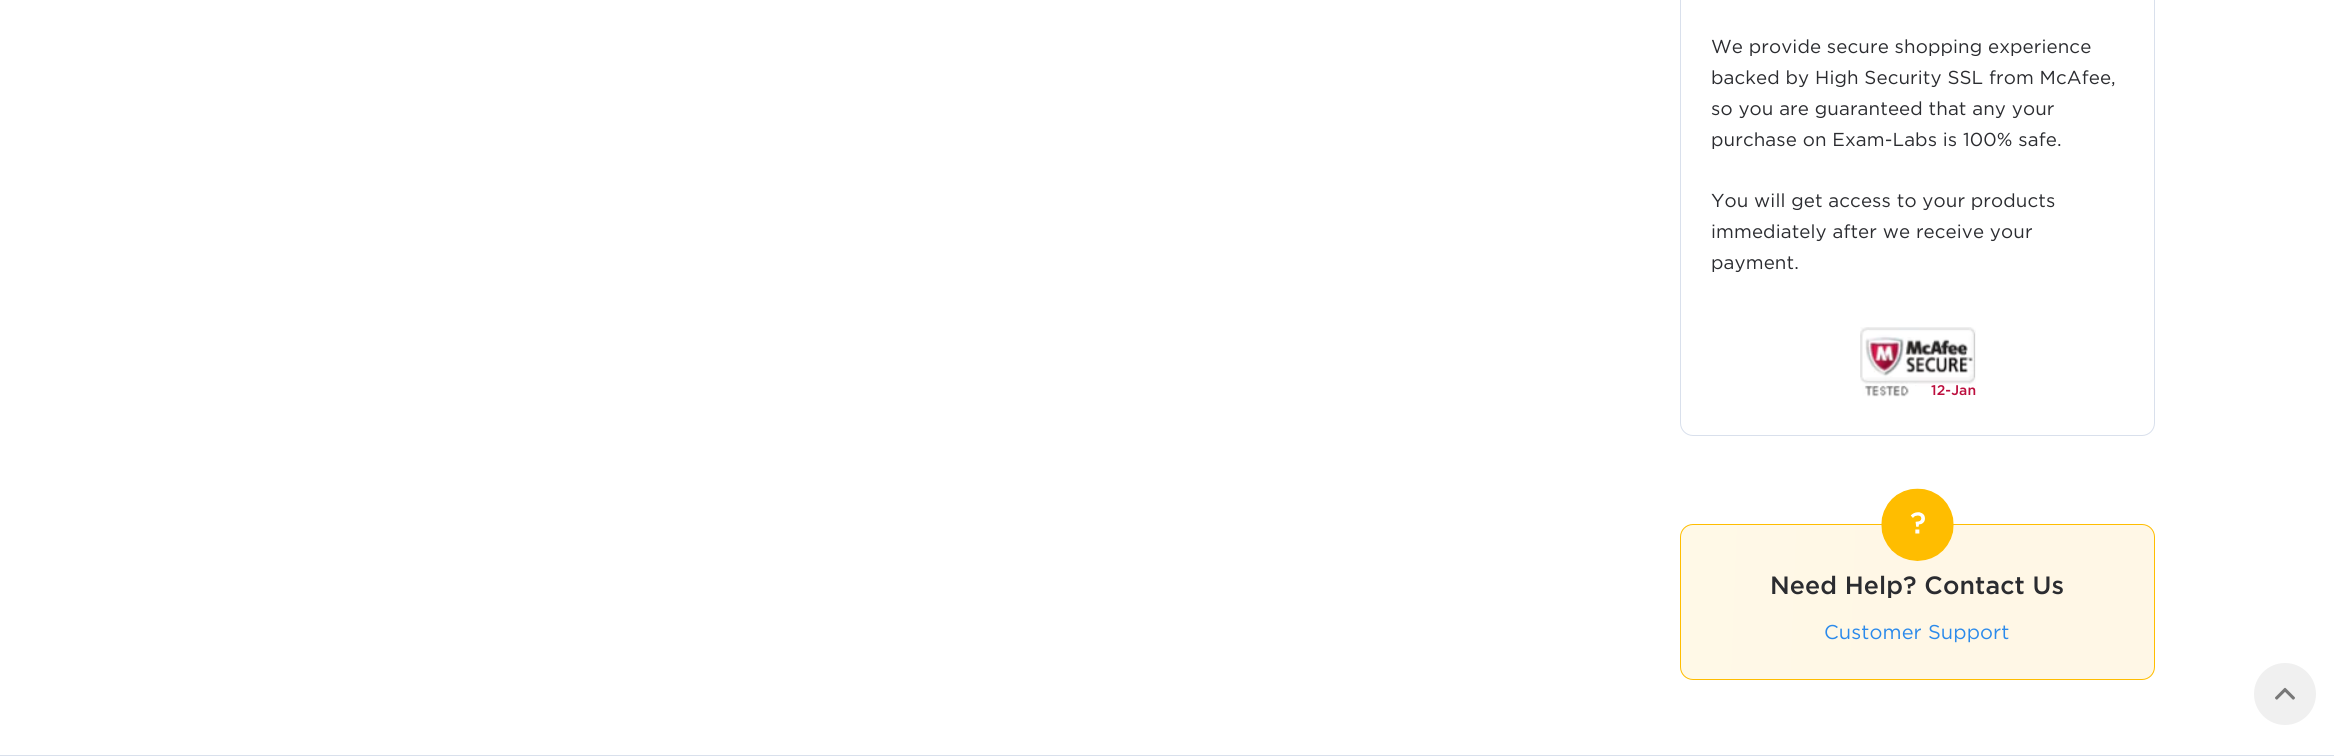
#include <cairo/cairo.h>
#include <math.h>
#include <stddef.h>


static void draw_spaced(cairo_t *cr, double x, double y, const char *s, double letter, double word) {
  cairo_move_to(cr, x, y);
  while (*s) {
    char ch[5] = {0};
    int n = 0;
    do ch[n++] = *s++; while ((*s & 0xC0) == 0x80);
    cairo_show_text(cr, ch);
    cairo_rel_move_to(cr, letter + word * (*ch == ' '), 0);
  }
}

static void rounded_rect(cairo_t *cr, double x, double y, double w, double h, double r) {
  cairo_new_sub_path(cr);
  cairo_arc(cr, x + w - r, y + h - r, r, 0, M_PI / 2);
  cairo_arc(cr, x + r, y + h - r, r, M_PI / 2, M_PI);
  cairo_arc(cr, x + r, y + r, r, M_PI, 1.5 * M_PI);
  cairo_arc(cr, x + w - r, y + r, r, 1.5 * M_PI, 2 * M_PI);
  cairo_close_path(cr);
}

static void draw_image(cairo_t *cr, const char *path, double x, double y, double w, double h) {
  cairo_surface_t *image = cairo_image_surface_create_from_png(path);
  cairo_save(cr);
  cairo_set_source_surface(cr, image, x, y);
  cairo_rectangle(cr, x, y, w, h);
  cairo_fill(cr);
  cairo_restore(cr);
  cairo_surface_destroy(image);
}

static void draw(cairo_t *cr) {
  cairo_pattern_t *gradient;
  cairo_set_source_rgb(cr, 1, 1, 1);
  cairo_paint(cr);
  rounded_rect(cr, 1680.5, -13.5, 474, 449, 12.5);
  cairo_set_source_rgb(cr, 217 / 255.0, 224 / 255.0, 236 / 255.0);
  cairo_set_line_width(cr, 1);
  cairo_stroke(cr);
  draw_image(cr, "images/1.png", 1860, 327, 116, 70);
  draw_image(cr, "images/2.png", 1860, 327, 116, 69);
  cairo_save(cr);
  rounded_rect(cr, 1680, 524, 475, 156, 13);
  cairo_clip(cr);
  gradient = cairo_pattern_create_linear(1438, 583, 2156, 611);
  cairo_pattern_add_color_stop_rgba(gradient, 0, 1, 251 / 255.0, 232 / 255.0, 1);
  cairo_pattern_add_color_stop_rgba(gradient, 0.66, 1, 247 / 255.0, 230 / 255.0, 1);
  cairo_set_source(cr, gradient);
  cairo_pattern_destroy(gradient);
  cairo_rectangle(cr, 1681, 525, 473, 154);
  cairo_fill(cr);
  cairo_restore(cr);
  rounded_rect(cr, 1680.5, 524.5, 474, 155, 12.5);
  cairo_set_source_rgb(cr, 1, 189 / 255.0, 0);
  cairo_stroke(cr);
  draw_image(cr, "images/3.png", 1881, 488, 73, 73);
  cairo_set_source_rgb(cr, 217 / 255.0, 224 / 255.0, 236 / 255.0);
  cairo_rectangle(cr, 0, 755, 2334, 1);
  cairo_fill(cr);
  cairo_set_source_rgb(cr, 240 / 255.0, 240 / 255.0, 240 / 255.0);
  cairo_arc(cr, 2285, 694, 31, 0, 2 * M_PI);
  cairo_fill(cr);
  draw_image(cr, "images/4.png", 2275, 687, 20, 13);
  cairo_select_font_face(cr, "Gotham", CAIRO_FONT_SLANT_NORMAL, CAIRO_FONT_WEIGHT_NORMAL);
  cairo_set_font_size(cr, 18.75);
  cairo_set_source_rgb(cr, 43 / 255.0, 44 / 255.0, 48 / 255.0);
  draw_spaced(cr, 1711, 53, "We provide secure shopping experience", 0.1, 0);
  draw_spaced(cr, 1711, 84, "backed by High Security SSL from McAfee,", 0.1, 0);
  draw_spaced(cr, 1711, 115, "so you are guaranteed that any your", 0.1, 0);
  draw_spaced(cr, 1711, 146, "purchase on Exam-Labs is 100% safe.", 0.1, 0);
  draw_spaced(cr, 1711, 207, "You will get access to your products", 0.1, 0);
  draw_spaced(cr, 1711, 238, "immediately after we receive your", 0.1, 0);
  draw_spaced(cr, 1711, 269, "payment.", 0.1, 0);
  cairo_select_font_face(cr, "Gotham Medium", CAIRO_FONT_SLANT_NORMAL, CAIRO_FONT_WEIGHT_NORMAL);
  cairo_set_font_size(cr, 14);
  cairo_set_source_rgb(cr, 188 / 255.0, 15 / 255.0, 62 / 255.0);
  draw_spaced(cr, 1931, 395, "12-Jan", 0.1, 0);
  cairo_set_font_size(cr, 25);
  cairo_set_source_rgb(cr, 43 / 255.0, 44 / 255.0, 48 / 255.0);
  draw_spaced(cr, 1770, 594, "Need Help? Contact Us", 0.1, 0);
  cairo_select_font_face(cr, "Gotham", CAIRO_FONT_SLANT_NORMAL, CAIRO_FONT_WEIGHT_NORMAL);
  cairo_set_font_size(cr, 20);
  cairo_set_source_rgb(cr, 43 / 255.0, 138 / 255.0, 235 / 255.0);
  draw_spaced(cr, 1824, 639, "Customer Support", 0.1, 0);
}

int main(void) {
  cairo_surface_t *surface = cairo_image_surface_create(CAIRO_FORMAT_RGB24, 2334, 756);
  cairo_t *cr = cairo_create(surface);
  cairo_font_options_t *options = cairo_font_options_create();
  cairo_font_options_set_hint_metrics(options, CAIRO_HINT_METRICS_OFF);
  cairo_font_options_set_hint_style(options, CAIRO_HINT_STYLE_NONE);
  cairo_set_font_options(cr, options);
  cairo_set_miter_limit(cr, 4);
  draw(cr);
  cairo_surface_write_to_png(surface, "out.png");
  cairo_font_options_destroy(options);
  cairo_destroy(cr);
  cairo_surface_destroy(surface);
  return 0;
}
